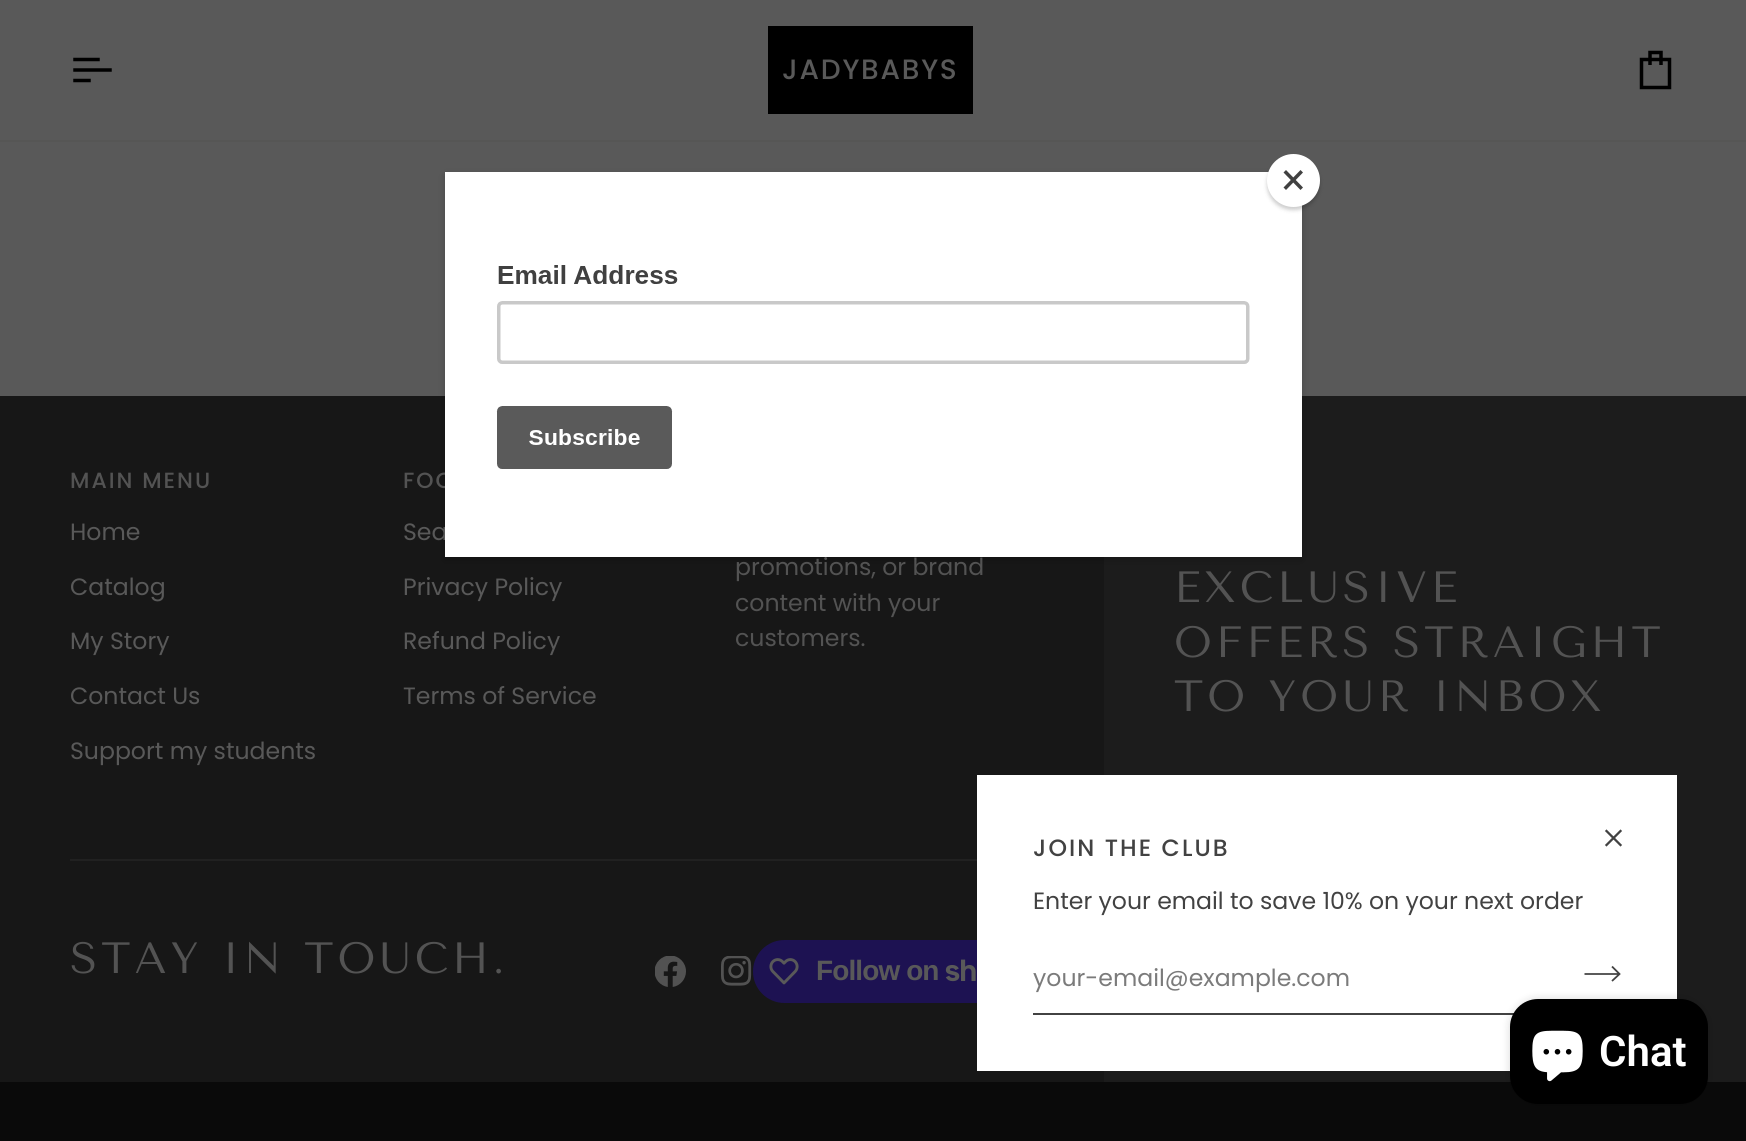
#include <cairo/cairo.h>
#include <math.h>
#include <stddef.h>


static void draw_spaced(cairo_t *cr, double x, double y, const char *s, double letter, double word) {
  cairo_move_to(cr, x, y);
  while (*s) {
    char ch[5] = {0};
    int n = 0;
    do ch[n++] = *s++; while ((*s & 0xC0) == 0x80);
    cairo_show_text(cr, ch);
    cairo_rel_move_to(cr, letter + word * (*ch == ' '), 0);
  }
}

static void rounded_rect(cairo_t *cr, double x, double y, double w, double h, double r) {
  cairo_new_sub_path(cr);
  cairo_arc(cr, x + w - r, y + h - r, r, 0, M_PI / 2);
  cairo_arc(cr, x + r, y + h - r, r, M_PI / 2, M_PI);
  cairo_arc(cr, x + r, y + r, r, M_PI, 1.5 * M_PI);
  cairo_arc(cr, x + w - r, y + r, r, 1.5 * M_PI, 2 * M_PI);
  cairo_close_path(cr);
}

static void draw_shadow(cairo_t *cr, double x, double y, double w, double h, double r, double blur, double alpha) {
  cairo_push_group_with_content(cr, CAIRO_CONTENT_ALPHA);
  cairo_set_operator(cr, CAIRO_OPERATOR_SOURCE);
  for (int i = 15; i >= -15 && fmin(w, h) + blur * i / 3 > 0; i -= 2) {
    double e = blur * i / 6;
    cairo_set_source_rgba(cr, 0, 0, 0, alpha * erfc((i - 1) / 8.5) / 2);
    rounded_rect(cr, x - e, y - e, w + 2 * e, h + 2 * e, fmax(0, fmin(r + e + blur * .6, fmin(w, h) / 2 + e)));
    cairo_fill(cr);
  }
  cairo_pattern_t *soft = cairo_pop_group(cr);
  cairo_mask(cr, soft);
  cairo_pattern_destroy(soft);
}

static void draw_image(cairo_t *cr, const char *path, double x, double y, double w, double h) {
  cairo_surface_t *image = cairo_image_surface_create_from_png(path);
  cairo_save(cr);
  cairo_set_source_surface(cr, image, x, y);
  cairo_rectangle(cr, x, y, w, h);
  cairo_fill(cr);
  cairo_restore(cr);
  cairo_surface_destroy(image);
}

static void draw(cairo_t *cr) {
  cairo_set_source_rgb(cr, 89 / 255.0, 89 / 255.0, 89 / 255.0);
  cairo_paint(cr);
  cairo_set_source_rgb(cr, 86 / 255.0, 86 / 255.0, 85 / 255.0);
  cairo_rectangle(cr, 0, 140, 1746, 2);
  cairo_fill(cr);
  cairo_new_path(cr);
  cairo_move_to(cr, 98, 59.5);
  cairo_line_to(cr, 75, 59.5);
  cairo_move_to(cr, 110, 70);
  cairo_line_to(cr, 75, 70);
  cairo_move_to(cr, 89, 80.5);
  cairo_line_to(cr, 75, 80.5);
  cairo_set_source_rgb(cr, 0, 0, 0);
  cairo_set_line_width(cr, 3.5);
  cairo_set_line_cap(cr, CAIRO_LINE_CAP_SQUARE);
  cairo_stroke(cr);
  cairo_rectangle(cr, 768, 26, 205, 88);
  cairo_fill(cr);
  cairo_new_path(cr);
  cairo_move_to(cr, 1641.5, 59.5);
  cairo_line_to(cr, 1669.5, 59.5);
  cairo_line_to(cr, 1669.5, 87.5);
  cairo_line_to(cr, 1641.5, 87.5);
  cairo_close_path(cr);
  cairo_move_to(cr, 1650, 65);
  cairo_line_to(cr, 1650, 52.5);
  cairo_line_to(cr, 1661, 52.5);
  cairo_line_to(cr, 1661, 65);
  cairo_set_line_cap(cr, CAIRO_LINE_CAP_BUTT);
  cairo_stroke(cr);
  cairo_set_source_rgb(cr, 23 / 255.0, 23 / 255.0, 23 / 255.0);
  cairo_rectangle(cr, 0, 396, 1104, 686);
  cairo_fill(cr);
  cairo_set_source_rgb(cr, 28 / 255.0, 28 / 255.0, 28 / 255.0);
  cairo_rectangle(cr, 1104, 396, 642, 686);
  cairo_fill(cr);
  cairo_set_source_rgb(cr, 0, 0, 0);
  draw_shadow(cr, 445, 175, 857, 385, 0, 3.5, 0.2);
  cairo_set_source_rgb(cr, 33 / 255.0, 33 / 255.0, 33 / 255.0);
  cairo_rectangle(cr, 70, 859, 907, 2);
  cairo_fill(cr);
  draw_image(cr, "images/2.png", 655, 956, 31, 31);
  draw_image(cr, "images/3.png", 721, 956, 31, 30);
  cairo_set_source_rgb(cr, 29 / 255.0, 18 / 255.0, 82 / 255.0);
  rounded_rect(cr, 753, 940, 281, 63, 31.5);
  cairo_fill(cr);
  draw_image(cr, "images/4.png", 769, 958, 30, 27);
  draw_image(cr, "images/5.png", 945, 959, 31, 23);
  cairo_set_source_rgb(cr, 1, 1, 1);
  cairo_rectangle(cr, 977, 775, 700, 296);
  cairo_fill(cr);
  cairo_new_path(cr);
  cairo_move_to(cr, 1620.5, 831);
  cairo_line_to(cr, 1606.5, 845);
  cairo_move_to(cr, 1606.5, 831);
  cairo_line_to(cr, 1620.5, 845);
  cairo_set_source_rgb(cr, 66 / 255.0, 66 / 255.0, 66 / 255.0);
  cairo_set_line_width(cr, 2.3);
  cairo_set_line_cap(cr, CAIRO_LINE_CAP_SQUARE);
  cairo_stroke(cr);
  cairo_rectangle(cr, 1033, 1013, 481, 2);
  cairo_fill(cr);
  cairo_new_path(cr);
  cairo_move_to(cr, 1612, 966.5);
  cairo_line_to(cr, 1619.5, 974);
  cairo_line_to(cr, 1612, 981);
  cairo_move_to(cr, 1584.5, 974);
  cairo_line_to(cr, 1619.5, 974);
  cairo_set_line_width(cr, 1.8);
  cairo_set_line_cap(cr, CAIRO_LINE_CAP_BUTT);
  cairo_stroke(cr);
  cairo_set_source_rgb(cr, 10 / 255.0, 10 / 255.0, 10 / 255.0);
  cairo_rectangle(cr, 0, 1082, 1746, 59);
  cairo_fill(cr);
  cairo_set_source_rgb(cr, 0, 0, 0);
  draw_shadow(cr, 1510, 999, 198, 105, 28, 4.5, 0.15);
  cairo_set_source_rgb(cr, 0, 0, 0);
  rounded_rect(cr, 1510, 999, 198, 105, 28);
  cairo_fill(cr);
  draw_image(cr, "images/6.png", 1532, 1030, 51, 52);
  cairo_select_font_face(cr, "Poppins Medium", CAIRO_FONT_SLANT_NORMAL, CAIRO_FONT_WEIGHT_NORMAL);
  cairo_set_font_size(cr, 28);
  cairo_set_source_rgb(cr, 89 / 255.0, 89 / 255.0, 89 / 255.0);
  draw_spaced(cr, 782, 79, "JADYBABYS", 1.75, 0);
  cairo_set_font_size(cr, 22);
  cairo_set_source_rgb(cr, 83 / 255.0, 83 / 255.0, 83 / 255.0);
  draw_spaced(cr, 70, 488, "MAIN MENU", 2, 0);
  cairo_select_font_face(cr, "Poppins", CAIRO_FONT_SLANT_NORMAL, CAIRO_FONT_WEIGHT_NORMAL);
  cairo_set_font_size(cr, 23.6);
  cairo_set_source_rgb(cr, 89 / 255.0, 89 / 255.0, 89 / 255.0);
  cairo_move_to(cr, 70, 540);
  cairo_show_text(cr, "Home");
  cairo_move_to(cr, 70, 595);
  cairo_show_text(cr, "Catalog");
  cairo_move_to(cr, 70, 649);
  cairo_show_text(cr, "My Story");
  cairo_move_to(cr, 70, 704);
  cairo_show_text(cr, "Contact Us");
  cairo_move_to(cr, 70, 759);
  cairo_show_text(cr, "Support my students");
  cairo_select_font_face(cr, "Poppins Medium", CAIRO_FONT_SLANT_NORMAL, CAIRO_FONT_WEIGHT_NORMAL);
  cairo_set_font_size(cr, 22);
  cairo_set_source_rgb(cr, 83 / 255.0, 83 / 255.0, 83 / 255.0);
  draw_spaced(cr, 403, 488, "FOO", 2, 0);
  cairo_select_font_face(cr, "Poppins", CAIRO_FONT_SLANT_NORMAL, CAIRO_FONT_WEIGHT_NORMAL);
  cairo_set_font_size(cr, 23.6);
  cairo_set_source_rgb(cr, 89 / 255.0, 89 / 255.0, 89 / 255.0);
  cairo_move_to(cr, 403, 540);
  cairo_show_text(cr, "Sea");
  draw_image(cr, "images/1.png", 445, 172, 857, 385);
  cairo_set_source_rgb(cr, 0, 0, 0);
  draw_shadow(cr, 1267, 158, 53, 52, 26, 2, 0.2);
  cairo_set_source_rgb(cr, 1, 1, 1);
  cairo_arc(cr, 1293.5, 180.5, 26.5, 0, 2 * M_PI);
  cairo_fill(cr);
  cairo_set_source_rgb(cr, 65 / 255.0, 65 / 255.0, 65 / 255.0);
  cairo_new_path(cr);
  cairo_move_to(cr, 1300.5, 170);
  cairo_line_to(cr, 1303, 172.5);
  cairo_line_to(cr, 1286, 190);
  cairo_line_to(cr, 1283.5, 187.5);
  cairo_close_path(cr);
  cairo_fill(cr);
  cairo_new_path(cr);
  cairo_move_to(cr, 1283.5, 172.5);
  cairo_line_to(cr, 1286, 170);
  cairo_line_to(cr, 1303, 187.5);
  cairo_line_to(cr, 1300.5, 190);
  cairo_close_path(cr);
  cairo_fill(cr);
  cairo_set_source_rgb(cr, 89 / 255.0, 89 / 255.0, 89 / 255.0);
  cairo_move_to(cr, 403, 595);
  cairo_show_text(cr, "Privacy Policy");
  cairo_move_to(cr, 403, 649);
  cairo_show_text(cr, "Refund Policy");
  cairo_move_to(cr, 403, 704);
  cairo_show_text(cr, "Terms of Service");
  cairo_set_source_rgb(cr, 83 / 255.0, 83 / 255.0, 83 / 255.0);
  cairo_move_to(cr, 735, 575);
  cairo_show_text(cr, "promotions, or brand");
  cairo_move_to(cr, 735, 611);
  cairo_show_text(cr, "content with your");
  cairo_move_to(cr, 735, 646);
  cairo_show_text(cr, "customers.");
  cairo_select_font_face(cr, "Tenor Sans", CAIRO_FONT_SLANT_NORMAL, CAIRO_FONT_WEIGHT_NORMAL);
  cairo_set_font_size(cr, 43.75);
  draw_spaced(cr, 70, 973, "STAY IN TOUCH.", 4, 0);
  cairo_select_font_face(cr, "Liberation Sans", CAIRO_FONT_SLANT_NORMAL, CAIRO_FONT_WEIGHT_BOLD);
  cairo_set_font_size(cr, 28);
  cairo_set_source_rgb(cr, 89 / 255.0, 89 / 255.0, 89 / 255.0);
  draw_spaced(cr, 816, 980, "Follow on", -0.9, 0);
  cairo_select_font_face(cr, "Tenor Sans", CAIRO_FONT_SLANT_NORMAL, CAIRO_FONT_WEIGHT_NORMAL);
  cairo_set_font_size(cr, 43.75);
  cairo_set_source_rgb(cr, 83 / 255.0, 83 / 255.0, 83 / 255.0);
  draw_spaced(cr, 1174, 602, "EXCLUSIVE", 4, 0);
  draw_spaced(cr, 1174, 657, "OFFERS STRAIGHT", 4, 0);
  draw_spaced(cr, 1174, 711, "TO YOUR INBOX", 4, 0);
  cairo_select_font_face(cr, "Poppins Medium", CAIRO_FONT_SLANT_NORMAL, CAIRO_FONT_WEIGHT_NORMAL);
  cairo_set_font_size(cr, 23.6);
  cairo_set_source_rgb(cr, 66 / 255.0, 66 / 255.0, 66 / 255.0);
  draw_spaced(cr, 1033, 856, "JOIN THE CLUB", 2.1, 0);
  cairo_select_font_face(cr, "Poppins", CAIRO_FONT_SLANT_NORMAL, CAIRO_FONT_WEIGHT_NORMAL);
  cairo_move_to(cr, 1033, 909);
  cairo_show_text(cr, "Enter your email to save 10% on your next order");
  cairo_set_source_rgb(cr, 123 / 255.0, 123 / 255.0, 123 / 255.0);
  cairo_move_to(cr, 1033, 986);
  cairo_show_text(cr, "your-email@example.com");
  cairo_select_font_face(cr, "Roboto SemiBold", CAIRO_FONT_SLANT_NORMAL, CAIRO_FONT_WEIGHT_NORMAL);
  cairo_set_font_size(cr, 42);
  cairo_set_source_rgb(cr, 1, 1, 1);
  cairo_move_to(cr, 1599, 1066);
  cairo_show_text(cr, "Chat");
}

int main(void) {
  cairo_surface_t *surface = cairo_image_surface_create(CAIRO_FORMAT_RGB24, 1746, 1141);
  cairo_t *cr = cairo_create(surface);
  cairo_font_options_t *options = cairo_font_options_create();
  cairo_font_options_set_hint_metrics(options, CAIRO_HINT_METRICS_OFF);
  cairo_font_options_set_hint_style(options, CAIRO_HINT_STYLE_NONE);
  cairo_set_font_options(cr, options);
  cairo_set_miter_limit(cr, 4);
  draw(cr);
  cairo_surface_write_to_png(surface, "out.png");
  cairo_font_options_destroy(options);
  cairo_destroy(cr);
  cairo_surface_destroy(surface);
  return 0;
}
